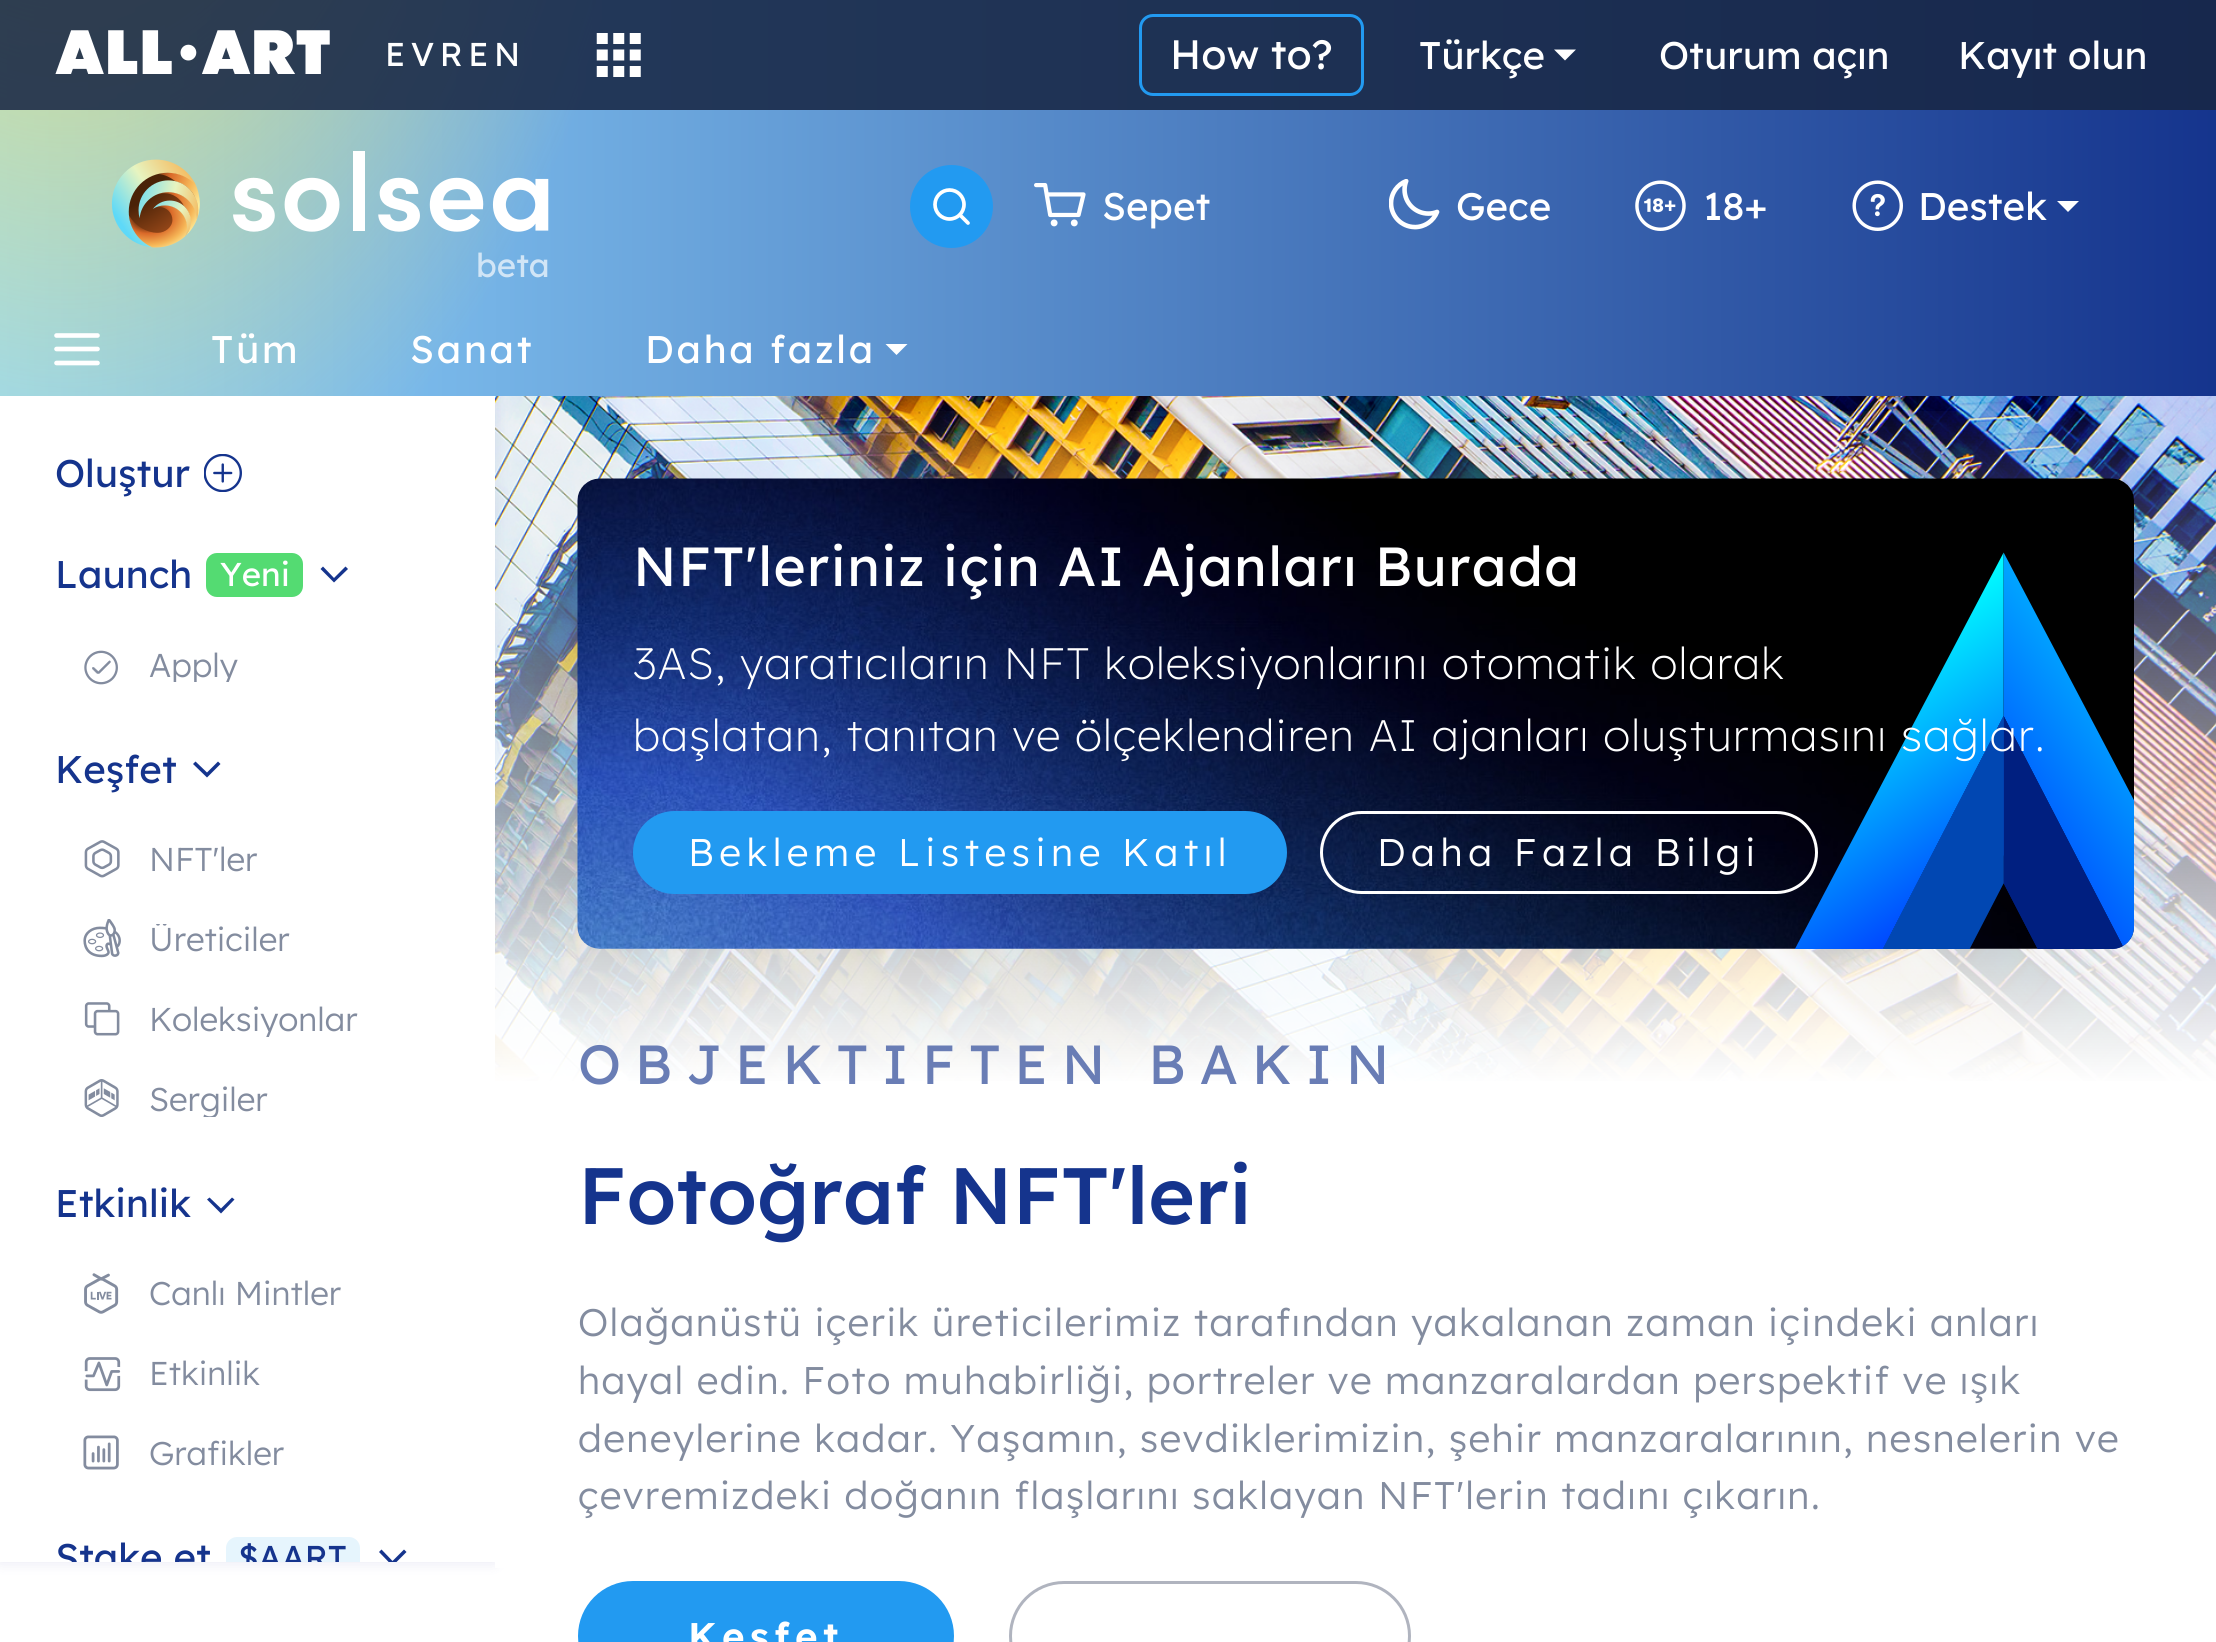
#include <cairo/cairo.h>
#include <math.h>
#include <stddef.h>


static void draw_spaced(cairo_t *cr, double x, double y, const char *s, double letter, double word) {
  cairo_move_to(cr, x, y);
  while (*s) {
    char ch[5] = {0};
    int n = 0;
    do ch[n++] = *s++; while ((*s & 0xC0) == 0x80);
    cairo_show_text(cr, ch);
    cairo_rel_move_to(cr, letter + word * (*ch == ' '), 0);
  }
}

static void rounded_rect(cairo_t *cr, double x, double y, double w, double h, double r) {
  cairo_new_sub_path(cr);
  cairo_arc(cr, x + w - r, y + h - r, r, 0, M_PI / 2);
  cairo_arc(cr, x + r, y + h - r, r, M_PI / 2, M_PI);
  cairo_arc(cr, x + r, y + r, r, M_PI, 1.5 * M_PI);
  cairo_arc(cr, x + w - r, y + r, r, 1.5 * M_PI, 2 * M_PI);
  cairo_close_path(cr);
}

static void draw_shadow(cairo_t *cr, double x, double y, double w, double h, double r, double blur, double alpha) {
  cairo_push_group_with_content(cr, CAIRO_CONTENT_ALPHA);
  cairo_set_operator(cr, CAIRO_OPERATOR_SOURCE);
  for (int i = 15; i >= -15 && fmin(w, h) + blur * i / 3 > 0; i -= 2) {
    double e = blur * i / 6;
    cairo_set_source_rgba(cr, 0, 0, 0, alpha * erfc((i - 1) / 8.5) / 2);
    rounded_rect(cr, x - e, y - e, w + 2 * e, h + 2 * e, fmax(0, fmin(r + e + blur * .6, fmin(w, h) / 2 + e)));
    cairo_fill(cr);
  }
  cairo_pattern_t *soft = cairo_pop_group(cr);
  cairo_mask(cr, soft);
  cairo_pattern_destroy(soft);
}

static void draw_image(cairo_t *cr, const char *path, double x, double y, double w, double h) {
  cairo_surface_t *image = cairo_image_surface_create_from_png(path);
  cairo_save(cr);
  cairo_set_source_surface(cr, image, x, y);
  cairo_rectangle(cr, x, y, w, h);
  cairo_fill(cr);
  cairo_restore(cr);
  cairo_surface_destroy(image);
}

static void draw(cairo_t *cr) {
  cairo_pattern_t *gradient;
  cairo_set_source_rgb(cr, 1, 1, 1);
  cairo_paint(cr);
  draw_image(cr, "images/17.png", 495, 396, 1721, 685);
  cairo_save(cr);
  cairo_set_fill_rule(cr, CAIRO_FILL_RULE_EVEN_ODD);
  cairo_new_path(cr);
  cairo_move_to(cr, 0, 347);
  cairo_line_to(cr, 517, 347);
  cairo_line_to(cr, 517, 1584);
  cairo_line_to(cr, 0, 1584);
  cairo_close_path(cr);
  cairo_move_to(cr, 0, 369);
  cairo_line_to(cr, 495, 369);
  cairo_line_to(cr, 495, 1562);
  cairo_line_to(cr, 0, 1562);
  cairo_close_path(cr);
  cairo_clip(cr);
  cairo_set_source_rgb(cr, 0, 0, 128 / 255.0);
  draw_shadow(cr, 0, 369, 495, 1193, 0, 7, 0.1);
  cairo_restore(cr);
  gradient = cairo_pattern_create_linear(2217, 198, 0, 198);
  cairo_pattern_add_color_stop_rgba(gradient, 0, 21 / 255.0, 52 / 255.0, 141 / 255.0, 1);
  cairo_pattern_add_color_stop_rgba(gradient, 1, 144 / 255.0, 215 / 255.0, 1, 1);
  cairo_set_source(cr, gradient);
  cairo_pattern_destroy(gradient);
  cairo_rectangle(cr, 0, 0, 2216, 396);
  cairo_fill(cr);
  gradient = cairo_pattern_create_radial(0, 0, 0, 0, 0, 1);
  cairo_pattern_set_matrix(gradient, &(cairo_matrix_t){1.0 / 621, 0, 0, 1.0 / 1109, -1.0 * 66 / 621, -1.0 * -515 / 1109});
  cairo_pattern_add_color_stop_rgba(gradient, 0, 1, 227 / 255.0, 82 / 255.0, 1);
  cairo_pattern_add_color_stop_rgba(gradient, 1, 1, 227 / 255.0, 82 / 255.0, 0);
  cairo_set_source(cr, gradient);
  cairo_pattern_destroy(gradient);
  cairo_rectangle(cr, 0, 0, 602, 396);
  cairo_fill(cr);
  cairo_set_source_rgba(cr, 24 / 255.0, 38 / 255.0, 68 / 255.0, 0.87);
  cairo_rectangle(cr, 0, 0, 2216, 110);
  cairo_fill(cr);
  draw_image(cr, "images/1.png", 55, 30, 275, 44);
  draw_image(cr, "images/2.png", 596, 33, 45, 44);
  rounded_rect(cr, 1140.5, 15.5, 222, 79, 12.5);
  cairo_set_source_rgb(cr, 34 / 255.0, 154 / 255.0, 241 / 255.0);
  cairo_set_line_width(cr, 3);
  cairo_stroke(cr);
  cairo_set_source_rgb(cr, 1, 1, 1);
  cairo_new_path(cr);
  cairo_move_to(cr, 1554, 49.5);
  cairo_line_to(cr, 1576, 49.5);
  cairo_line_to(cr, 1565, 60.5);
  cairo_close_path(cr);
  cairo_fill(cr);
  draw_image(cr, "images/3.png", 1034, 183, 52, 44);
  draw_image(cr, "images/4.png", 1389, 179, 51, 51);
  draw_image(cr, "images/5.png", 1635, 180, 51, 51);
  draw_image(cr, "images/6.png", 1852, 180, 51, 51);
  cairo_new_path(cr);
  cairo_move_to(cr, 2057, 201);
  cairo_line_to(cr, 2079, 201);
  cairo_line_to(cr, 2068, 212);
  cairo_close_path(cr);
  cairo_fill(cr);
  cairo_set_source_rgb(cr, 34 / 255.0, 154 / 255.0, 241 / 255.0);
  cairo_arc(cr, 951.5, 206.5, 41.5, 0, 2 * M_PI);
  cairo_fill(cr);
  cairo_arc(cr, 949.5, 204.5, 14.5, 0, 2 * M_PI);
  cairo_set_source_rgb(cr, 1, 1, 1);
  cairo_set_line_width(cr, 3.7);
  cairo_stroke(cr);
  cairo_new_path(cr);
  cairo_move_to(cr, 968, 223);
  cairo_line_to(cr, 960, 215);
  cairo_set_line_cap(cr, CAIRO_LINE_CAP_ROUND);
  cairo_set_line_join(cr, CAIRO_LINE_JOIN_ROUND);
  cairo_stroke(cr);
  draw_image(cr, "images/7.png", 111, 151, 438, 97);
  cairo_new_path(cr);
  cairo_move_to(cr, 56.5, 349);
  cairo_line_to(cr, 97.5, 349);
  cairo_move_to(cr, 56.5, 335.5);
  cairo_line_to(cr, 97.5, 335.5);
  cairo_move_to(cr, 56.5, 363);
  cairo_line_to(cr, 97.5, 363);
  cairo_set_line_width(cr, 4.6);
  cairo_stroke(cr);
  cairo_new_path(cr);
  cairo_move_to(cr, 885.5, 344);
  cairo_line_to(cr, 907.5, 344);
  cairo_line_to(cr, 896.5, 355);
  cairo_close_path(cr);
  cairo_fill(cr);
  draw_image(cr, "images/8.png", 204, 454, 38, 38);
  cairo_set_source_rgb(cr, 84 / 255.0, 219 / 255.0, 114 / 255.0);
  rounded_rect(cr, 206, 553, 97, 44, 11);
  cairo_fill(cr);
  cairo_set_source_rgb(cr, 21 / 255.0, 52 / 255.0, 141 / 255.0);
  cairo_new_path(cr);
  cairo_move_to(cr, 323, 566.5);
  cairo_line_to(cr, 320.5, 569);
  cairo_line_to(cr, 334, 582.5);
  cairo_line_to(cr, 348, 569);
  cairo_line_to(cr, 345.5, 566.5);
  cairo_line_to(cr, 334, 578);
  cairo_close_path(cr);
  cairo_fill(cr);
  draw_image(cr, "images/9.png", 84, 650, 34, 35);
  cairo_new_path(cr);
  cairo_move_to(cr, 195.5, 761.5);
  cairo_line_to(cr, 193, 764);
  cairo_line_to(cr, 207, 777.5);
  cairo_line_to(cr, 220.5, 764);
  cairo_line_to(cr, 218, 761.5);
  cairo_line_to(cr, 207, 772.5);
  cairo_close_path(cr);
  cairo_fill(cr);
  draw_image(cr, "images/10.png", 84, 840, 36, 38);
  draw_image(cr, "images/11.png", 83, 919, 38, 39);
  draw_image(cr, "images/12.png", 84, 1002, 36, 34);
  draw_image(cr, "images/13.png", 84, 1079, 35, 38);
  cairo_new_path(cr);
  cairo_move_to(cr, 209.5, 1197.5);
  cairo_line_to(cr, 207, 1199.5);
  cairo_line_to(cr, 221, 1213.5);
  cairo_line_to(cr, 234.5, 1199.5);
  cairo_line_to(cr, 232, 1197.5);
  cairo_line_to(cr, 221, 1208.5);
  cairo_close_path(cr);
  cairo_fill(cr);
  draw_image(cr, "images/14.png", 84, 1273, 35, 41);
  draw_image(cr, "images/15.png", 84, 1357, 37, 35);
  draw_image(cr, "images/16.png", 83, 1435, 36, 35);
  cairo_set_source_rgb(cr, 230 / 255.0, 245 / 255.0, 253 / 255.0);
  cairo_new_path(cr);
  cairo_move_to(cr, 237, 1537);
  cairo_line_to(cr, 349, 1537);
  cairo_curve_to(cr, 355, 1537, 360, 1542, 360, 1548);
  cairo_line_to(cr, 360, 1562);
  cairo_line_to(cr, 226, 1562);
  cairo_line_to(cr, 226, 1548);
  cairo_curve_to(cr, 226, 1542, 231, 1537, 237, 1537);
  cairo_close_path(cr);
  cairo_fill(cr);
  cairo_save(cr);
  cairo_rectangle(cr, 0, 369, 495, 1193);
  cairo_clip(cr);
  cairo_set_source_rgb(cr, 21 / 255.0, 52 / 255.0, 141 / 255.0);
  cairo_new_path(cr);
  cairo_move_to(cr, 381.5, 1549.5);
  cairo_line_to(cr, 379, 1552);
  cairo_line_to(cr, 392.5, 1566);
  cairo_line_to(cr, 406.5, 1552);
  cairo_line_to(cr, 404, 1549.5);
  cairo_line_to(cr, 392.5, 1561);
  cairo_close_path(cr);
  cairo_fill(cr);
  cairo_restore(cr);
  gradient = cairo_pattern_create_linear(1356, 396, 1356, 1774);
  cairo_pattern_add_color_stop_rgba(gradient, 0, 1, 1, 1, 0);
  cairo_pattern_add_color_stop_rgba(gradient, 0.5, 1, 1, 1, 1);
  cairo_set_source(cr, gradient);
  cairo_pattern_destroy(gradient);
  cairo_rectangle(cr, 495, 411, 1721, 1157);
  cairo_fill(cr);
  draw_image(cr, "images/18.png", 577, 478, 1557, 471);
  cairo_set_source_rgb(cr, 34 / 255.0, 154 / 255.0, 241 / 255.0);
  rounded_rect(cr, 633, 811, 654, 83, 41.5);
  cairo_fill(cr);
  draw_image(cr, "images/19.png", 1795, 552, 339, 397);
  rounded_rect(cr, 1321.5, 812.5, 495, 80, 40);
  cairo_set_source_rgb(cr, 1, 1, 1);
  cairo_set_line_width(cr, 3);
  cairo_set_line_cap(cr, CAIRO_LINE_CAP_BUTT);
  cairo_set_line_join(cr, CAIRO_LINE_JOIN_MITER);
  cairo_stroke(cr);
  cairo_set_source_rgb(cr, 34 / 255.0, 154 / 255.0, 241 / 255.0);
  rounded_rect(cr, 578, 1581, 376, 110, 55);
  cairo_fill(cr);
  rounded_rect(cr, 1010.5, 1582.5, 399, 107, 53.5);
  cairo_set_source_rgb(cr, 176 / 255.0, 180 / 255.0, 191 / 255.0);
  cairo_stroke(cr);
  cairo_select_font_face(cr, "Lexend", CAIRO_FONT_SLANT_NORMAL, CAIRO_FONT_WEIGHT_NORMAL);
  cairo_set_font_size(cr, 33);
  cairo_set_source_rgb(cr, 1, 1, 1);
  draw_spaced(cr, 385, 66, "EVREN", 5.5, 0);
  cairo_set_font_size(cr, 41);
  cairo_move_to(cr, 1170, 69);
  cairo_show_text(cr, "How to?");
  cairo_set_font_size(cr, 38.5);
  cairo_move_to(cr, 1419, 69);
  cairo_show_text(cr, "Türkçe");
  cairo_move_to(cr, 1659, 69);
  cairo_show_text(cr, "Oturum açın");
  cairo_move_to(cr, 1958, 69);
  cairo_show_text(cr, "Kayıt olun");
  cairo_move_to(cr, 1102, 220);
  cairo_show_text(cr, "Sepet");
  cairo_move_to(cr, 1456, 220);
  cairo_show_text(cr, "Gece");
  cairo_move_to(cr, 1703, 220);
  cairo_show_text(cr, "18+");
  cairo_move_to(cr, 1918, 220);
  cairo_show_text(cr, "Destek");
  cairo_set_font_size(cr, 33);
  cairo_set_source_rgb(cr, 209 / 255.0, 229 / 255.0, 246 / 255.0);
  cairo_move_to(cr, 476, 277);
  cairo_show_text(cr, "beta");
  cairo_set_font_size(cr, 38.5);
  cairo_set_source_rgb(cr, 1, 1, 1);
  draw_spaced(cr, 211, 363, "Tüm", 2.75, 0);
  draw_spaced(cr, 410, 363, "Sanat", 2.75, 0);
  draw_spaced(cr, 645, 363, "Daha fazla", 2.75, 0);
  cairo_set_source_rgb(cr, 21 / 255.0, 52 / 255.0, 141 / 255.0);
  cairo_move_to(cr, 55, 487);
  cairo_show_text(cr, "Oluştur");
  cairo_move_to(cr, 55, 588);
  cairo_show_text(cr, "Launch");
  cairo_set_font_size(cr, 33);
  cairo_set_source_rgb(cr, 1, 1, 1);
  cairo_move_to(cr, 220, 586);
  cairo_show_text(cr, "Yeni");
  cairo_save(cr);
  cairo_rectangle(cr, 149, 649, 346, 33);
  cairo_clip(cr);
  cairo_select_font_face(cr, "Lexend Light", CAIRO_FONT_SLANT_NORMAL, CAIRO_FONT_WEIGHT_NORMAL);
  cairo_set_source_rgb(cr, 131 / 255.0, 140 / 255.0, 159 / 255.0);
  cairo_move_to(cr, 149, 677);
  cairo_show_text(cr, "Apply");
  cairo_restore(cr);
  cairo_set_font_size(cr, 38.5);
  cairo_set_source_rgb(cr, 21 / 255.0, 52 / 255.0, 141 / 255.0);
  cairo_move_to(cr, 55, 783);
  cairo_show_text(cr, "Keşfet");
  cairo_select_font_face(cr, "Lexend Light", CAIRO_FONT_SLANT_NORMAL, CAIRO_FONT_WEIGHT_NORMAL);
  cairo_set_font_size(cr, 33);
  cairo_set_source_rgb(cr, 131 / 255.0, 140 / 255.0, 159 / 255.0);
  cairo_move_to(cr, 149, 871);
  cairo_show_text(cr, "NFT'ler");
  cairo_save(cr);
  cairo_rectangle(cr, 149, 924, 346, 33);
  cairo_clip(cr);
  cairo_move_to(cr, 149, 951);
  cairo_show_text(cr, "Üreticiler");
  cairo_restore(cr);
  cairo_save(cr);
  cairo_rectangle(cr, 149, 1004, 346, 33);
  cairo_clip(cr);
  cairo_move_to(cr, 149, 1031);
  cairo_show_text(cr, "Koleksiyonlar");
  cairo_restore(cr);
  cairo_save(cr);
  cairo_rectangle(cr, 149, 1084, 346, 33);
  cairo_clip(cr);
  cairo_move_to(cr, 149, 1111);
  cairo_show_text(cr, "Sergiler");
  cairo_restore(cr);
  cairo_select_font_face(cr, "Lexend", CAIRO_FONT_SLANT_NORMAL, CAIRO_FONT_WEIGHT_NORMAL);
  cairo_set_font_size(cr, 38.5);
  cairo_set_source_rgb(cr, 21 / 255.0, 52 / 255.0, 141 / 255.0);
  cairo_move_to(cr, 55, 1217);
  cairo_show_text(cr, "Etkinlik");
  cairo_select_font_face(cr, "Lexend Light", CAIRO_FONT_SLANT_NORMAL, CAIRO_FONT_WEIGHT_NORMAL);
  cairo_set_font_size(cr, 33);
  cairo_set_source_rgb(cr, 131 / 255.0, 140 / 255.0, 159 / 255.0);
  cairo_move_to(cr, 149, 1305);
  cairo_show_text(cr, "Canlı Mintler");
  cairo_move_to(cr, 149, 1385);
  cairo_show_text(cr, "Etkinlik");
  cairo_move_to(cr, 149, 1465);
  cairo_show_text(cr, "Grafikler");
  cairo_save(cr);
  cairo_rectangle(cr, 0, 369, 495, 1193);
  cairo_clip(cr);
  cairo_select_font_face(cr, "Lexend", CAIRO_FONT_SLANT_NORMAL, CAIRO_FONT_WEIGHT_NORMAL);
  cairo_set_font_size(cr, 38.5);
  cairo_set_source_rgb(cr, 21 / 255.0, 52 / 255.0, 141 / 255.0);
  cairo_move_to(cr, 55, 1571);
  cairo_show_text(cr, "Stake et");
  cairo_set_font_size(cr, 33);
  cairo_move_to(cr, 238, 1569);
  cairo_show_text(cr, "$AART");
  cairo_restore(cr);
  cairo_select_font_face(cr, "Lexend", CAIRO_FONT_SLANT_NORMAL, CAIRO_FONT_WEIGHT_NORMAL);
  cairo_set_font_size(cr, 55);
  cairo_set_source_rgb(cr, 1, 1, 1);
  draw_spaced(cr, 633, 586, "NFT'leriniz için AI Ajanları Burada", 1.38, 0);
  cairo_select_font_face(cr, "Lexend ExtraLight", CAIRO_FONT_SLANT_NORMAL, CAIRO_FONT_WEIGHT_NORMAL);
  cairo_set_font_size(cr, 44);
  draw_spaced(cr, 633, 679, "3AS, yaratıcıların NFT koleksiyonlarını otomatik olarak", 1.38, 0);
  draw_spaced(cr, 633, 751, "başlatan, tanıtan ve ölçeklendiren AI ajanları oluşturmasını sağlar.", 1.38, 0);
  cairo_select_font_face(cr, "Lexend Light", CAIRO_FONT_SLANT_NORMAL, CAIRO_FONT_WEIGHT_NORMAL);
  cairo_set_font_size(cr, 38.5);
  draw_spaced(cr, 688, 866, "Bekleme Listesine Katıl", 5.5, 0);
  draw_spaced(cr, 1377, 866, "Daha Fazla Bilgi", 5.5, 0);
  cairo_select_font_face(cr, "Lexend", CAIRO_FONT_SLANT_NORMAL, CAIRO_FONT_WEIGHT_NORMAL);
  cairo_set_font_size(cr, 55);
  cairo_set_source_rgb(cr, 105 / 255.0, 125 / 255.0, 181 / 255.0);
  draw_spaced(cr, 578, 1084, "OBJEKTIFTEN BAKIN", 13.75, 0);
  cairo_select_font_face(cr, "Lexend Medium", CAIRO_FONT_SLANT_NORMAL, CAIRO_FONT_WEIGHT_NORMAL);
  cairo_set_font_size(cr, 79.75);
  cairo_set_source_rgb(cr, 21 / 255.0, 52 / 255.0, 141 / 255.0);
  cairo_move_to(cr, 578, 1224);
  cairo_show_text(cr, "Fotoğraf NFT'leri");
  cairo_select_font_face(cr, "Lexend Light", CAIRO_FONT_SLANT_NORMAL, CAIRO_FONT_WEIGHT_NORMAL);
  cairo_set_font_size(cr, 38.5);
  cairo_set_source_rgb(cr, 131 / 255.0, 140 / 255.0, 159 / 255.0);
  draw_spaced(cr, 578, 1336, "Olağanüstü içerik üreticilerimiz tarafından yakalanan zaman içindeki anları", 1.38, 0);
  draw_spaced(cr, 578, 1394, "hayal edin. Foto muhabirliği, portreler ve manzaralardan perspektif ve ışık", 1.38, 0);
  draw_spaced(cr, 578, 1452, "deneylerine kadar. Yaşamın, sevdiklerimizin, şehir manzaralarının, nesnelerin ve", 1.38, 0);
  draw_spaced(cr, 578, 1509, "çevremizdeki doğanın flaşlarını saklayan NFT'lerin tadını çıkarın.", 1.38, 0);
  cairo_select_font_face(cr, "Lexend SemiBold", CAIRO_FONT_SLANT_NORMAL, CAIRO_FONT_WEIGHT_NORMAL);
  cairo_set_source_rgb(cr, 1, 1, 1);
  draw_spaced(cr, 688, 1650, "Keşfet", 5.5, 0);
}

int main(void) {
  cairo_surface_t *surface = cairo_image_surface_create(CAIRO_FORMAT_RGB24, 2216, 1642);
  cairo_t *cr = cairo_create(surface);
  cairo_font_options_t *options = cairo_font_options_create();
  cairo_font_options_set_hint_metrics(options, CAIRO_HINT_METRICS_OFF);
  cairo_font_options_set_hint_style(options, CAIRO_HINT_STYLE_NONE);
  cairo_set_font_options(cr, options);
  cairo_set_miter_limit(cr, 4);
  draw(cr);
  cairo_surface_write_to_png(surface, "out.png");
  cairo_font_options_destroy(options);
  cairo_destroy(cr);
  cairo_surface_destroy(surface);
  return 0;
}
